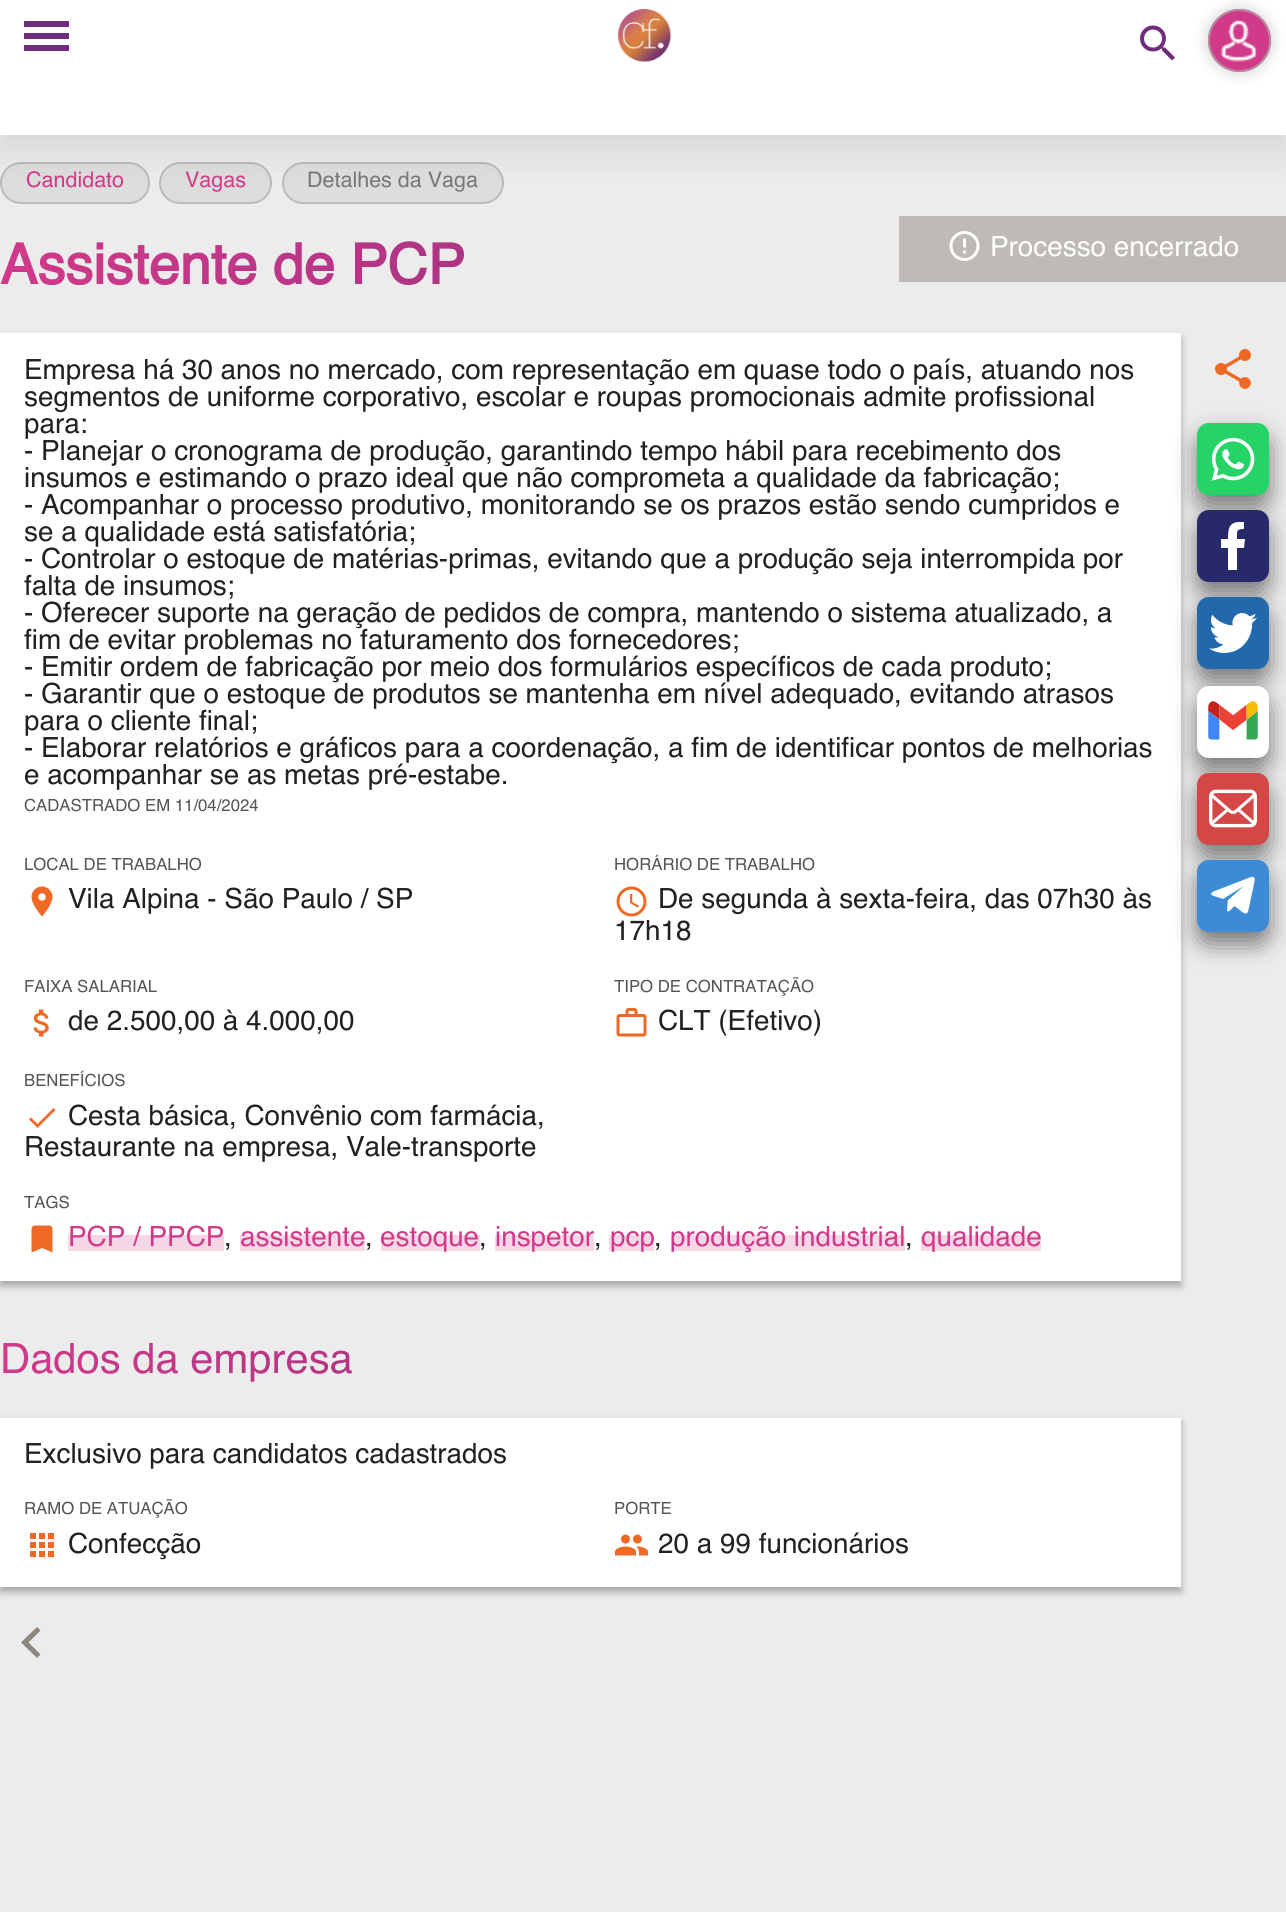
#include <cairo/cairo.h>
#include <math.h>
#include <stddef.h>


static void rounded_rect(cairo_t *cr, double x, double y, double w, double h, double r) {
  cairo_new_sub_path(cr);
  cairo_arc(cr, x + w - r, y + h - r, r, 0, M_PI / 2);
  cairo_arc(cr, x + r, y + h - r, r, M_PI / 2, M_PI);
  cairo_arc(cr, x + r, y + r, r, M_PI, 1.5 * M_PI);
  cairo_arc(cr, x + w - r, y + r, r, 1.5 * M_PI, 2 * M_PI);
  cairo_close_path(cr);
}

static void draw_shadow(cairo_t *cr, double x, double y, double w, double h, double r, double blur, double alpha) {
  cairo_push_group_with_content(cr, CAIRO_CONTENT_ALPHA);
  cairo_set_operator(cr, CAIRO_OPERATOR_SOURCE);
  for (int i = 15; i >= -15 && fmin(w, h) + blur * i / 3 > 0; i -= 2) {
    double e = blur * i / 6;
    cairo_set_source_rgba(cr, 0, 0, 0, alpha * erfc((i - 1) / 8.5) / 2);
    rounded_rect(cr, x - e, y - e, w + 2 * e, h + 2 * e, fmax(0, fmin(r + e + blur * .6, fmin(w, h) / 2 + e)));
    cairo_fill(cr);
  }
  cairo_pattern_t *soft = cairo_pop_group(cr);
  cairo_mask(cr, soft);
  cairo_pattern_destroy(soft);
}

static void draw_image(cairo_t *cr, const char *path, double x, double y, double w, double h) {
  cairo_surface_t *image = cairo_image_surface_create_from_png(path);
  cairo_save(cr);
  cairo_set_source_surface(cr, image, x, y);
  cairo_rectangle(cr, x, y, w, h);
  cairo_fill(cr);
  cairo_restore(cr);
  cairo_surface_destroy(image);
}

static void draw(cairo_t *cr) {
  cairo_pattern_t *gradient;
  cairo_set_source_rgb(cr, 236 / 255.0, 236 / 255.0, 236 / 255.0);
  cairo_paint(cr);
  cairo_set_source_rgb(cr, 221 / 255.0, 221 / 255.0, 221 / 255.0);
  rounded_rect(cr, 1, 163, 148, 40, 20);
  cairo_fill_preserve(cr);
  cairo_set_source_rgb(cr, 187 / 255.0, 187 / 255.0, 187 / 255.0);
  cairo_stroke(cr);
  cairo_set_source_rgb(cr, 221 / 255.0, 221 / 255.0, 221 / 255.0);
  rounded_rect(cr, 160, 163, 111, 40, 20);
  cairo_fill_preserve(cr);
  cairo_set_source_rgb(cr, 187 / 255.0, 187 / 255.0, 187 / 255.0);
  cairo_stroke(cr);
  cairo_set_source_rgb(cr, 221 / 255.0, 221 / 255.0, 221 / 255.0);
  rounded_rect(cr, 283, 163, 220, 40, 20);
  cairo_fill_preserve(cr);
  cairo_set_source_rgb(cr, 187 / 255.0, 187 / 255.0, 187 / 255.0);
  cairo_stroke(cr);
  cairo_set_source_rgb(cr, 0, 0, 0);
  draw_shadow(cr, 0, 15, 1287, 135, 0, 19, 0.1);
  cairo_set_source_rgb(cr, 1, 1, 1);
  cairo_rectangle(cr, 0, 0, 1286, 135);
  cairo_fill(cr);
  cairo_set_source_rgb(cr, 111 / 255.0, 44 / 255.0, 124 / 255.0);
  cairo_rectangle(cr, 24, 21, 45, 6);
  cairo_fill(cr);
  cairo_rectangle(cr, 24, 33, 45, 6);
  cairo_fill(cr);
  cairo_rectangle(cr, 24, 45, 45, 6);
  cairo_fill(cr);
  draw_image(cr, "images/1.png", 617, 9, 55, 53);
  draw_image(cr, "images/2.png", 1140, 25, 35, 36);
  cairo_set_source_rgb(cr, 0, 0, 0);
  draw_shadow(cr, 1208, 9, 63, 63, 31.5, 7.5, 0.2);
  cairo_set_source_rgb(cr, 209 / 255.0, 57 / 255.0, 137 / 255.0);
  cairo_arc(cr, 1239.5, 40.5, 31.5, 0, 2 * M_PI);
  cairo_fill(cr);
  draw_image(cr, "images/3.png", 1220, 19, 37, 43);
  cairo_arc(cr, 1239.5, 40.5, 30.5, 0, 2 * M_PI);
  cairo_set_source_rgba(cr, 170 / 255.0, 170 / 255.0, 170 / 255.0, 0.7);
  cairo_stroke(cr);
  cairo_set_source_rgb(cr, 190 / 255.0, 186 / 255.0, 182 / 255.0);
  cairo_rectangle(cr, 899, 216, 387, 66);
  cairo_fill(cr);
  draw_image(cr, "images/4.png", 949, 231, 31, 30);
  cairo_set_source_rgb(cr, 0, 0, 0);
  draw_shadow(cr, 0, 338, 1181, 948, 0, 4, 0.3);
  cairo_set_source_rgb(cr, 1, 1, 1);
  cairo_rectangle(cr, 0, 333, 1181, 948);
  cairo_fill(cr);
  draw_image(cr, "images/5.png", 31, 886, 22, 31);
  draw_image(cr, "images/6.png", 616, 886, 31, 31);
  draw_image(cr, "images/7.png", 33, 1009, 16, 28);
  draw_image(cr, "images/8.png", 616, 1008, 31, 29);
  cairo_set_source_rgb(cr, 239 / 255.0, 105 / 255.0, 37 / 255.0);
  cairo_new_path(cr);
  cairo_move_to(cr, 37.5, 1124);
  cairo_line_to(cr, 53.5, 1108);
  cairo_line_to(cr, 55.5, 1110);
  cairo_line_to(cr, 37.5, 1128);
  cairo_line_to(cr, 29, 1119.5);
  cairo_line_to(cr, 31, 1117.5);
  cairo_close_path(cr);
  cairo_fill(cr);
  draw_image(cr, "images/9.png", 31, 1225, 22, 28);
  cairo_set_source_rgb(cr, 246 / 255.0, 215 / 255.0, 231 / 255.0);
  cairo_rectangle(cr, 68, 1235, 156, 16);
  cairo_fill(cr);
  cairo_rectangle(cr, 240, 1235, 125, 16);
  cairo_fill(cr);
  cairo_rectangle(cr, 381, 1235, 99, 16);
  cairo_fill(cr);
  cairo_rectangle(cr, 495, 1235, 99, 16);
  cairo_fill(cr);
  cairo_rectangle(cr, 609, 1235, 45, 16);
  cairo_fill(cr);
  cairo_rectangle(cr, 671, 1235, 234, 16);
  cairo_fill(cr);
  cairo_rectangle(cr, 921, 1235, 120, 16);
  cairo_fill(cr);
  cairo_set_source_rgb(cr, 0, 0, 0);
  draw_shadow(cr, 0, 1422, 1181, 170, 0, 4, 0.3);
  cairo_set_source_rgb(cr, 1, 1, 1);
  cairo_rectangle(cr, 0, 1418, 1181, 169);
  cairo_fill(cr);
  draw_image(cr, "images/10.png", 29, 1532, 26, 26);
  draw_image(cr, "images/11.png", 614, 1534, 35, 22);
  cairo_set_source_rgb(cr, 142 / 255.0, 135 / 255.0, 128 / 255.0);
  cairo_new_path(cr);
  cairo_move_to(cr, 40.5, 1654.5);
  cairo_line_to(cr, 37, 1658);
  cairo_line_to(cr, 21, 1642.5);
  cairo_line_to(cr, 37, 1627);
  cairo_line_to(cr, 40.5, 1630.5);
  cairo_line_to(cr, 28.5, 1642.5);
  cairo_close_path(cr);
  cairo_fill(cr);
  draw_image(cr, "images/12.png", 1215, 349, 36, 40);
  cairo_set_source_rgb(cr, 0, 0, 0);
  draw_shadow(cr, 1197, 435, 72, 72, 12, 12, 0.5);
  draw_image(cr, "images/13.png", 1197, 423, 72, 72);
  draw_shadow(cr, 1197, 522, 72, 72, 12, 12, 0.5);
  cairo_set_source_rgb(cr, 40 / 255.0, 41 / 255.0, 107 / 255.0);
  rounded_rect(cr, 1197, 510, 72, 72, 12);
  cairo_fill(cr);
  cairo_set_source_rgb(cr, 1, 1, 1);
  cairo_set_fill_rule(cr, CAIRO_FILL_RULE_EVEN_ODD);
  cairo_new_path(cr);
  cairo_move_to(cr, 1237, 570);
  cairo_line_to(cr, 1237, 548);
  cairo_line_to(cr, 1244, 548);
  cairo_line_to(cr, 1245, 539);
  cairo_line_to(cr, 1237, 539);
  cairo_curve_to(cr, 1237, 531, 1236, 529, 1244, 529);
  cairo_line_to(cr, 1244, 522);
  cairo_line_to(cr, 1238, 522);
  cairo_curve_to(cr, 1228, 523, 1228, 531, 1228, 539);
  cairo_line_to(cr, 1221, 539);
  cairo_line_to(cr, 1221, 548);
  cairo_line_to(cr, 1228, 548);
  cairo_line_to(cr, 1228, 570);
  cairo_close_path(cr);
  cairo_fill(cr);
  cairo_set_source_rgb(cr, 0, 0, 0);
  draw_shadow(cr, 1197, 609, 72, 72, 12, 12, 0.5);
  cairo_set_source_rgb(cr, 33 / 255.0, 105 / 255.0, 172 / 255.0);
  rounded_rect(cr, 1197, 597, 72, 72, 12);
  cairo_fill(cr);
  draw_image(cr, "images/14.png", 1209, 613, 48, 40);
  cairo_set_source_rgb(cr, 0, 0, 0);
  draw_shadow(cr, 1197, 698, 72, 72, 12, 12, 0.5);
  cairo_set_source_rgb(cr, 1, 1, 1);
  rounded_rect(cr, 1197, 686, 72, 72, 12);
  cairo_fill(cr);
  draw_image(cr, "images/15.png", 1208, 701, 50, 39);
  cairo_set_source_rgb(cr, 0, 0, 0);
  draw_shadow(cr, 1197, 785, 72, 72, 12, 12, 0.5);
  cairo_set_source_rgb(cr, 211 / 255.0, 71 / 255.0, 71 / 255.0);
  rounded_rect(cr, 1197, 773, 72, 72, 12);
  cairo_fill(cr);
  draw_image(cr, "images/16.png", 1209, 789, 48, 39);
  cairo_set_source_rgb(cr, 0, 0, 0);
  draw_shadow(cr, 1197, 872, 72, 72, 12, 12, 0.5);
  cairo_set_source_rgb(cr, 59 / 255.0, 139 / 255.0, 214 / 255.0);
  rounded_rect(cr, 1197, 860, 72, 72, 12);
  cairo_fill(cr);
  draw_image(cr, "images/17.png", 1211, 876, 44, 38);
  cairo_select_font_face(cr, "Helvetica", CAIRO_FONT_SLANT_NORMAL, CAIRO_FONT_WEIGHT_NORMAL);
  cairo_set_font_size(cr, 21.5);
  cairo_set_source_rgb(cr, 209 / 255.0, 57 / 255.0, 137 / 255.0);
  cairo_move_to(cr, 26, 187);
  cairo_show_text(cr, "Candidato");
  cairo_move_to(cr, 185, 187);
  cairo_show_text(cr, "Vagas");
  cairo_set_source_rgb(cr, 119 / 255.0, 119 / 255.0, 119 / 255.0);
  cairo_move_to(cr, 307, 187);
  cairo_show_text(cr, "Detalhes da Vaga");
  cairo_select_font_face(cr, "Helvetica", CAIRO_FONT_SLANT_NORMAL, CAIRO_FONT_WEIGHT_BOLD);
  cairo_set_font_size(cr, 55.75);
  gradient = cairo_pattern_create_linear(0, 263, 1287, 263);
  cairo_pattern_add_color_stop_rgba(gradient, 0, 209 / 255.0, 57 / 255.0, 137 / 255.0, 1);
  cairo_pattern_add_color_stop_rgba(gradient, 1, 111 / 255.0, 44 / 255.0, 124 / 255.0, 1);
  cairo_set_source(cr, gradient);
  cairo_pattern_destroy(gradient);
  cairo_move_to(cr, 0, 284);
  cairo_show_text(cr, "Assistente de PCP");
  cairo_select_font_face(cr, "Helvetica", CAIRO_FONT_SLANT_NORMAL, CAIRO_FONT_WEIGHT_NORMAL);
  cairo_set_font_size(cr, 27.85);
  cairo_set_source_rgb(cr, 1, 1, 1);
  cairo_move_to(cr, 990, 256);
  cairo_show_text(cr, "Processo encerrado");
  cairo_set_source_rgb(cr, 35 / 255.0, 33 / 255.0, 31 / 255.0);
  cairo_move_to(cr, 24, 379);
  cairo_show_text(cr, "Empresa há 30 anos no mercado, com representação em quase todo o país, atuando nos");
  cairo_move_to(cr, 24, 406);
  cairo_show_text(cr, "segmentos de uniforme corporativo, escolar e roupas promocionais admite profissional");
  cairo_move_to(cr, 24, 433);
  cairo_show_text(cr, "para:");
  cairo_move_to(cr, 24, 460);
  cairo_show_text(cr, "- Planejar o cronograma de produção, garantindo tempo hábil para recebimento dos");
  cairo_move_to(cr, 24, 487);
  cairo_show_text(cr, "insumos e estimando o prazo ideal que não comprometa a qualidade da fabricação;");
  cairo_move_to(cr, 24, 514);
  cairo_show_text(cr, "- Acompanhar o processo produtivo, monitorando se os prazos estão sendo cumpridos e");
  cairo_move_to(cr, 24, 541);
  cairo_show_text(cr, "se a qualidade está satisfatória;");
  cairo_move_to(cr, 24, 568);
  cairo_show_text(cr, "- Controlar o estoque de matérias-primas, evitando que a produção seja interrompida por");
  cairo_move_to(cr, 24, 595);
  cairo_show_text(cr, "falta de insumos;");
  cairo_move_to(cr, 24, 622);
  cairo_show_text(cr, "- Oferecer suporte na geração de pedidos de compra, mantendo o sistema atualizado, a");
  cairo_move_to(cr, 24, 649);
  cairo_show_text(cr, "fim de evitar problemas no faturamento dos fornecedores;");
  cairo_move_to(cr, 24, 676);
  cairo_show_text(cr, "- Emitir ordem de fabricação por meio dos formulários específicos de cada produto;");
  cairo_move_to(cr, 24, 703);
  cairo_show_text(cr, "- Garantir que o estoque de produtos se mantenha em nível adequado, evitando atrasos");
  cairo_move_to(cr, 24, 730);
  cairo_show_text(cr, "para o cliente final;");
  cairo_move_to(cr, 24, 757);
  cairo_show_text(cr, "- Elaborar relatórios e gráficos para a coordenação, a fim de identificar pontos de melhorias");
  cairo_move_to(cr, 24, 784);
  cairo_show_text(cr, "e acompanhar se as metas pré-estabe.");
  cairo_set_font_size(cr, 16.75);
  cairo_set_source_rgb(cr, 85 / 255.0, 85 / 255.0, 85 / 255.0);
  cairo_move_to(cr, 24, 811);
  cairo_show_text(cr, "CADASTRADO EM 11/04/2024");
  cairo_move_to(cr, 24, 870);
  cairo_show_text(cr, "LOCAL DE TRABALHO");
  cairo_set_font_size(cr, 27.85);
  cairo_set_source_rgb(cr, 35 / 255.0, 33 / 255.0, 31 / 255.0);
  cairo_move_to(cr, 68, 908);
  cairo_show_text(cr, "Vila Alpina - São Paulo / SP");
  cairo_set_font_size(cr, 16.75);
  cairo_set_source_rgb(cr, 85 / 255.0, 85 / 255.0, 85 / 255.0);
  cairo_move_to(cr, 614, 870);
  cairo_show_text(cr, "HORÁRIO DE TRABALHO");
  cairo_set_font_size(cr, 27.85);
  cairo_set_source_rgb(cr, 35 / 255.0, 33 / 255.0, 31 / 255.0);
  cairo_move_to(cr, 658, 908);
  cairo_show_text(cr, "De segunda à sexta-feira, das 07h30 às");
  cairo_move_to(cr, 614, 940);
  cairo_show_text(cr, "17h18");
  cairo_set_font_size(cr, 16.75);
  cairo_set_source_rgb(cr, 85 / 255.0, 85 / 255.0, 85 / 255.0);
  cairo_move_to(cr, 24, 992);
  cairo_show_text(cr, "FAIXA SALARIAL");
  cairo_set_font_size(cr, 27.85);
  cairo_set_source_rgb(cr, 35 / 255.0, 33 / 255.0, 31 / 255.0);
  cairo_move_to(cr, 68, 1030);
  cairo_show_text(cr, "de 2.500,00 à 4.000,00");
  cairo_set_font_size(cr, 16.75);
  cairo_set_source_rgb(cr, 85 / 255.0, 85 / 255.0, 85 / 255.0);
  cairo_move_to(cr, 614, 992);
  cairo_show_text(cr, "TIPO DE CONTRATAÇÃO");
  cairo_set_font_size(cr, 27.85);
  cairo_set_source_rgb(cr, 35 / 255.0, 33 / 255.0, 31 / 255.0);
  cairo_move_to(cr, 658, 1030);
  cairo_show_text(cr, "CLT (Efetivo)");
  cairo_set_font_size(cr, 16.75);
  cairo_set_source_rgb(cr, 85 / 255.0, 85 / 255.0, 85 / 255.0);
  cairo_move_to(cr, 24, 1086);
  cairo_show_text(cr, "BENEFÍCIOS");
  cairo_set_font_size(cr, 27.85);
  cairo_set_source_rgb(cr, 35 / 255.0, 33 / 255.0, 31 / 255.0);
  cairo_move_to(cr, 68, 1125);
  cairo_show_text(cr, "Cesta básica, Convênio com farmácia,");
  cairo_move_to(cr, 24, 1156);
  cairo_show_text(cr, "Restaurante na empresa, Vale-transporte");
  cairo_set_font_size(cr, 16.75);
  cairo_set_source_rgb(cr, 85 / 255.0, 85 / 255.0, 85 / 255.0);
  cairo_move_to(cr, 24, 1208);
  cairo_show_text(cr, "TAGS");
  cairo_set_font_size(cr, 27.85);
  cairo_set_source_rgb(cr, 209 / 255.0, 57 / 255.0, 137 / 255.0);
  cairo_move_to(cr, 68, 1246);
  cairo_show_text(cr, "PCP / PPCP");
  cairo_set_source_rgb(cr, 35 / 255.0, 33 / 255.0, 31 / 255.0);
  cairo_move_to(cr, 224, 1246);
  cairo_show_text(cr, ",");
  cairo_set_source_rgb(cr, 209 / 255.0, 57 / 255.0, 137 / 255.0);
  cairo_move_to(cr, 240, 1246);
  cairo_show_text(cr, "assistente");
  cairo_set_source_rgb(cr, 35 / 255.0, 33 / 255.0, 31 / 255.0);
  cairo_move_to(cr, 365, 1246);
  cairo_show_text(cr, ",");
  cairo_set_source_rgb(cr, 209 / 255.0, 57 / 255.0, 137 / 255.0);
  cairo_move_to(cr, 380, 1246);
  cairo_show_text(cr, "estoque");
  cairo_set_source_rgb(cr, 35 / 255.0, 33 / 255.0, 31 / 255.0);
  cairo_move_to(cr, 479, 1246);
  cairo_show_text(cr, ",");
  cairo_set_source_rgb(cr, 209 / 255.0, 57 / 255.0, 137 / 255.0);
  cairo_move_to(cr, 495, 1246);
  cairo_show_text(cr, "inspetor");
  cairo_set_source_rgb(cr, 35 / 255.0, 33 / 255.0, 31 / 255.0);
  cairo_move_to(cr, 594, 1246);
  cairo_show_text(cr, ",");
  cairo_set_source_rgb(cr, 209 / 255.0, 57 / 255.0, 137 / 255.0);
  cairo_move_to(cr, 610, 1246);
  cairo_show_text(cr, "pcp");
  cairo_set_source_rgb(cr, 35 / 255.0, 33 / 255.0, 31 / 255.0);
  cairo_move_to(cr, 654, 1246);
  cairo_show_text(cr, ",");
  cairo_set_source_rgb(cr, 209 / 255.0, 57 / 255.0, 137 / 255.0);
  cairo_move_to(cr, 670, 1246);
  cairo_show_text(cr, "produção industrial");
  cairo_set_source_rgb(cr, 35 / 255.0, 33 / 255.0, 31 / 255.0);
  cairo_move_to(cr, 905, 1246);
  cairo_show_text(cr, ",");
  cairo_set_source_rgb(cr, 209 / 255.0, 57 / 255.0, 137 / 255.0);
  cairo_move_to(cr, 921, 1246);
  cairo_show_text(cr, "qualidade");
  cairo_set_font_size(cr, 41.75);
  gradient = cairo_pattern_create_linear(0, 1355, 1180, 1355);
  cairo_pattern_add_color_stop_rgba(gradient, 0, 209 / 255.0, 57 / 255.0, 137 / 255.0, 1);
  cairo_pattern_add_color_stop_rgba(gradient, 1, 111 / 255.0, 44 / 255.0, 124 / 255.0, 1);
  cairo_set_source(cr, gradient);
  cairo_pattern_destroy(gradient);
  cairo_move_to(cr, 0, 1373);
  cairo_show_text(cr, "Dados da empresa");
  cairo_set_font_size(cr, 27.85);
  cairo_set_source_rgb(cr, 35 / 255.0, 33 / 255.0, 31 / 255.0);
  cairo_move_to(cr, 24, 1463);
  cairo_show_text(cr, "Exclusivo para candidatos cadastrados");
  cairo_set_font_size(cr, 16.75);
  cairo_set_source_rgb(cr, 85 / 255.0, 85 / 255.0, 85 / 255.0);
  cairo_move_to(cr, 24, 1514);
  cairo_show_text(cr, "RAMO DE ATUAÇÃO");
  cairo_set_font_size(cr, 27.85);
  cairo_set_source_rgb(cr, 35 / 255.0, 33 / 255.0, 31 / 255.0);
  cairo_move_to(cr, 68, 1553);
  cairo_show_text(cr, "Confecção");
  cairo_set_font_size(cr, 16.75);
  cairo_set_source_rgb(cr, 85 / 255.0, 85 / 255.0, 85 / 255.0);
  cairo_move_to(cr, 614, 1514);
  cairo_show_text(cr, "PORTE");
  cairo_set_font_size(cr, 27.85);
  cairo_set_source_rgb(cr, 35 / 255.0, 33 / 255.0, 31 / 255.0);
  cairo_move_to(cr, 658, 1553);
  cairo_show_text(cr, "20 a 99 funcionários");
}

int main(void) {
  cairo_surface_t *surface = cairo_image_surface_create(CAIRO_FORMAT_RGB24, 1286, 1912);
  cairo_t *cr = cairo_create(surface);
  cairo_font_options_t *options = cairo_font_options_create();
  cairo_font_options_set_hint_metrics(options, CAIRO_HINT_METRICS_OFF);
  cairo_font_options_set_hint_style(options, CAIRO_HINT_STYLE_NONE);
  cairo_set_font_options(cr, options);
  cairo_set_miter_limit(cr, 4);
  draw(cr);
  cairo_surface_write_to_png(surface, "out.png");
  cairo_font_options_destroy(options);
  cairo_destroy(cr);
  cairo_surface_destroy(surface);
  return 0;
}
